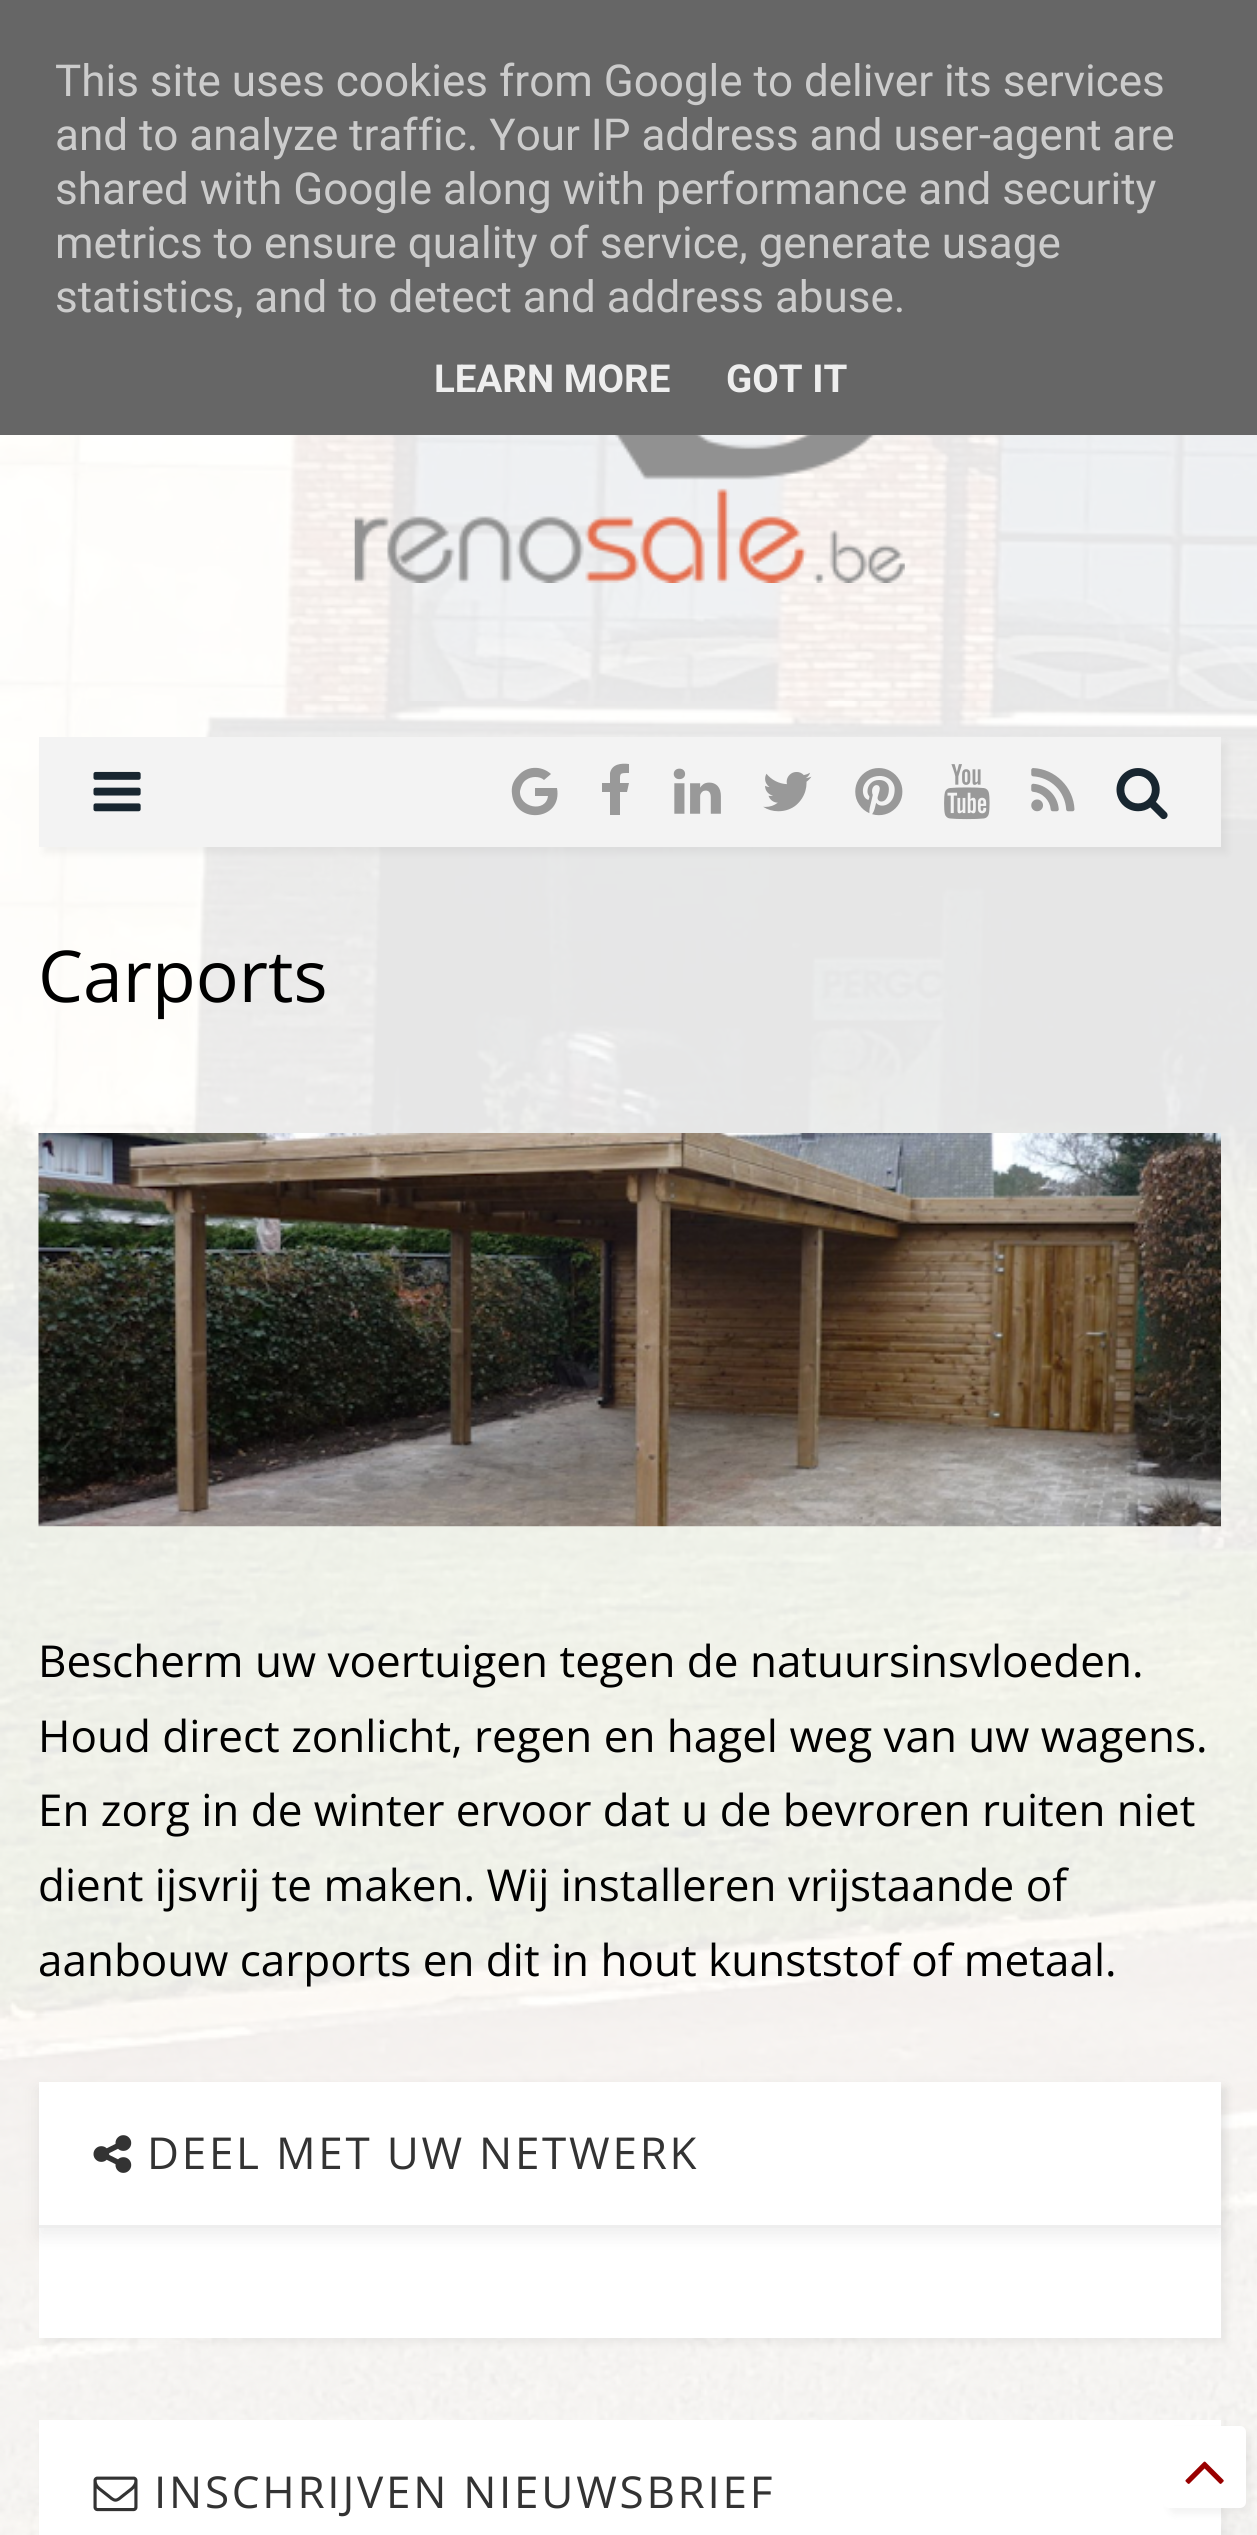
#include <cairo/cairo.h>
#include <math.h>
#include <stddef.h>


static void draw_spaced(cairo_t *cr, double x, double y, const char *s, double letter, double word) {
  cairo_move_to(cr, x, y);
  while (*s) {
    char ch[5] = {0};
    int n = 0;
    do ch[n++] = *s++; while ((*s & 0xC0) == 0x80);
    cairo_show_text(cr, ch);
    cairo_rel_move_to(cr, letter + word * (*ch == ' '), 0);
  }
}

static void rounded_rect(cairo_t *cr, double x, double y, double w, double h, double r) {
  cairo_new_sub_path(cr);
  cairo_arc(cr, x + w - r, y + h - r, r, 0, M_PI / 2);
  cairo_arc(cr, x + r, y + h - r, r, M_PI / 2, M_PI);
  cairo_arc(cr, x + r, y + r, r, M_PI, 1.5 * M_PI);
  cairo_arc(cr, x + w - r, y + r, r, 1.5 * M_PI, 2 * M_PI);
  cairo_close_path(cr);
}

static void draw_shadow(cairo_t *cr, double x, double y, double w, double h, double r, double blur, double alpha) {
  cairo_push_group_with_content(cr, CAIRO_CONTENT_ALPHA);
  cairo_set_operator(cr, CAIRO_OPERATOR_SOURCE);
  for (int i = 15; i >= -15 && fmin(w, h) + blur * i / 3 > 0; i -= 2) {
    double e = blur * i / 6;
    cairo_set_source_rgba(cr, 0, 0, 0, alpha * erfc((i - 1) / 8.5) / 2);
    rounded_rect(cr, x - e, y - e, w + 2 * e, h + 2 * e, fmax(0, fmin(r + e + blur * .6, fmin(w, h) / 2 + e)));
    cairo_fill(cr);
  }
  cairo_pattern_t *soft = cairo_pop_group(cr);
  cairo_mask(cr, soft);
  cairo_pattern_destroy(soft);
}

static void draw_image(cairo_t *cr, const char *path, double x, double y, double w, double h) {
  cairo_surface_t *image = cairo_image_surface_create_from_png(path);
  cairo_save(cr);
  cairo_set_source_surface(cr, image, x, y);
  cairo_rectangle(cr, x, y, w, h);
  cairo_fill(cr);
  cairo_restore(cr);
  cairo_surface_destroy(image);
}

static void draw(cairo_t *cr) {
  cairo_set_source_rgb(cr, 1, 1, 1);
  cairo_paint(cr);
  draw_image(cr, "images/1.png", 0, 435, 1257, 2100);
  cairo_set_source_rgb(cr, 102 / 255.0, 102 / 255.0, 102 / 255.0);
  cairo_rectangle(cr, 0, 0, 1257, 435);
  cairo_fill(cr);
  draw_image(cr, "images/2.png", 354, 435, 551, 148);
  cairo_set_source_rgb(cr, 0, 0, 0);
  draw_shadow(cr, 44, 743, 1183, 110, 0, 4, 0.05);
  cairo_set_source_rgb(cr, 243 / 255.0, 243 / 255.0, 243 / 255.0);
  cairo_rectangle(cr, 39, 737, 1182, 110);
  cairo_fill(cr);
  draw_image(cr, "images/3.png", 93, 771, 48, 41);
  cairo_set_source_rgb(cr, 153 / 255.0, 153 / 255.0, 153 / 255.0);
  cairo_new_path(cr);
  cairo_move_to(cr, 535, 788);
  cairo_line_to(cr, 557, 788);
  cairo_curve_to(cr, 563, 821, 515, 825, 512, 794);
  cairo_curve_to(cr, 511, 787, 513, 781, 518, 776);
  cairo_curve_to(cr, 526, 766, 541, 765, 551, 774);
  cairo_line_to(cr, 544, 780);
  cairo_curve_to(cr, 540, 776, 531, 776, 526, 780);
  cairo_curve_to(cr, 523, 782, 521, 786, 520, 791);
  cairo_curve_to(cr, 519, 808, 546, 813, 548, 796);
  cairo_line_to(cr, 535, 796);
  cairo_close_path(cr);
  cairo_fill(cr);
  cairo_new_path(cr);
  cairo_move_to(cr, 629, 764);
  cairo_line_to(cr, 629, 773);
  cairo_curve_to(cr, 619, 773, 620, 773, 620, 783);
  cairo_line_to(cr, 629, 783);
  cairo_line_to(cr, 627, 792);
  cairo_line_to(cr, 620, 792);
  cairo_line_to(cr, 620, 815);
  cairo_line_to(cr, 610, 815);
  cairo_line_to(cr, 610, 792);
  cairo_line_to(cr, 602, 792);
  cairo_line_to(cr, 602, 783);
  cairo_line_to(cr, 610, 783);
  cairo_line_to(cr, 610, 773);
  cairo_curve_to(cr, 612, 764, 621, 763, 629, 764);
  cairo_close_path(cr);
  cairo_fill(cr);
  draw_image(cr, "images/4.png", 673, 768, 48, 46);
  draw_image(cr, "images/5.png", 763, 772, 49, 40);
  draw_image(cr, "images/6.png", 855, 768, 48, 48);
  draw_image(cr, "images/7.png", 944, 764, 46, 56);
  draw_image(cr, "images/8.png", 1031, 768, 44, 44);
  draw_image(cr, "images/9.png", 1116, 768, 52, 52);
  draw_image(cr, "images/10.png", 38, 1133, 1183, 394);
  cairo_set_source_rgb(cr, 0, 0, 0);
  draw_shadow(cr, 44, 2087, 1183, 256, 0, 4, 0.05);
  cairo_set_source_rgb(cr, 1, 1, 1);
  cairo_rectangle(cr, 39, 2082, 1182, 256);
  cairo_fill(cr);
  cairo_save(cr);
  cairo_set_fill_rule(cr, CAIRO_FILL_RULE_EVEN_ODD);
  cairo_new_path(cr);
  cairo_move_to(cr, 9, 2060);
  cairo_line_to(cr, 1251, 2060);
  cairo_line_to(cr, 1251, 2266);
  cairo_line_to(cr, 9, 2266);
  cairo_close_path(cr);
  cairo_move_to(cr, 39, 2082);
  cairo_line_to(cr, 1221, 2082);
  cairo_line_to(cr, 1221, 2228);
  cairo_line_to(cr, 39, 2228);
  cairo_close_path(cr);
  cairo_clip(cr);
  cairo_set_source_rgb(cr, 0, 0, 0);
  draw_shadow(cr, 39, 2090, 1182, 146, 0, 9.5, 0.07);
  cairo_restore(cr);
  cairo_set_source_rgb(cr, 238 / 255.0, 238 / 255.0, 238 / 255.0);
  cairo_rectangle(cr, 39, 2225, 1182, 3);
  cairo_fill(cr);
  draw_image(cr, "images/11.png", 93, 2135, 39, 38);
  cairo_set_source_rgb(cr, 0, 0, 0);
  draw_shadow(cr, 44, 2426, 1183, 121, 0, 4, 0.05);
  cairo_set_source_rgb(cr, 1, 1, 1);
  cairo_rectangle(cr, 39, 2420, 1182, 115);
  cairo_fill(cr);
  draw_image(cr, "images/12.png", 93, 2476, 45, 36);
  cairo_set_source_rgb(cr, 0, 0, 0);
  draw_shadow(cr, 1169, 2431, 82, 83, 6, 4, 0.05);
  cairo_set_source_rgb(cr, 1, 1, 1);
  rounded_rect(cr, 1163, 2426, 83, 82, 6);
  cairo_fill(cr);
  draw_image(cr, "images/13.png", 1185, 2461, 39, 23);
  cairo_select_font_face(cr, "Roboto", CAIRO_FONT_SLANT_NORMAL, CAIRO_FONT_WEIGHT_NORMAL);
  cairo_set_font_size(cr, 44);
  cairo_set_source_rgb(cr, 204 / 255.0, 204 / 255.0, 204 / 255.0);
  cairo_move_to(cr, 55, 96);
  cairo_show_text(cr, "This site uses cookies from Google to deliver its services");
  cairo_move_to(cr, 55, 150);
  cairo_show_text(cr, "and to analyze traffic. Your IP address and user-agent are");
  cairo_move_to(cr, 55, 204);
  cairo_show_text(cr, "shared with Google along with performance and security");
  cairo_move_to(cr, 55, 258);
  cairo_show_text(cr, "metrics to ensure quality of service, generate usage");
  cairo_move_to(cr, 55, 312);
  cairo_show_text(cr, "statistics, and to detect and address abuse.");
  cairo_select_font_face(cr, "Roboto", CAIRO_FONT_SLANT_NORMAL, CAIRO_FONT_WEIGHT_BOLD);
  cairo_set_font_size(cr, 38.5);
  cairo_set_source_rgb(cr, 238 / 255.0, 238 / 255.0, 238 / 255.0);
  cairo_move_to(cr, 434, 392);
  cairo_show_text(cr, "LEARN MORE");
  cairo_move_to(cr, 726, 392);
  cairo_show_text(cr, "GOT IT");
  cairo_select_font_face(cr, "Open Sans", CAIRO_FONT_SLANT_NORMAL, CAIRO_FONT_WEIGHT_NORMAL);
  cairo_set_font_size(cr, 71.5);
  cairo_set_source_rgb(cr, 0, 0, 0);
  cairo_move_to(cr, 38, 1002);
  cairo_show_text(cr, "Carports");
  cairo_set_font_size(cr, 44);
  cairo_move_to(cr, 38, 1677);
  cairo_show_text(cr, "Bescherm uw voertuigen tegen de natuursinsvloeden.");
  cairo_move_to(cr, 38, 1752);
  cairo_show_text(cr, "Houd direct zonlicht, regen en hagel weg van uw wagens.");
  cairo_move_to(cr, 38, 1826);
  cairo_show_text(cr, "En zorg in de winter ervoor dat u de bevroren ruiten niet");
  cairo_move_to(cr, 38, 1901);
  cairo_show_text(cr, "dient ijsvrij te maken. Wij installeren vrijstaande of");
  cairo_move_to(cr, 38, 1976);
  cairo_show_text(cr, "aanbouw carports en dit in hout kunststof of metaal.");
  cairo_set_source_rgb(cr, 51 / 255.0, 51 / 255.0, 51 / 255.0);
  draw_spaced(cr, 147, 2169, "DEEL MET UW NETWERK", 2.75, 0);
  draw_spaced(cr, 154, 2508, "INSCHRIJVEN NIEUWSBRIEF", 2.75, 0);
}

int main(void) {
  cairo_surface_t *surface = cairo_image_surface_create(CAIRO_FORMAT_RGB24, 1257, 2535);
  cairo_t *cr = cairo_create(surface);
  cairo_font_options_t *options = cairo_font_options_create();
  cairo_font_options_set_hint_metrics(options, CAIRO_HINT_METRICS_OFF);
  cairo_font_options_set_hint_style(options, CAIRO_HINT_STYLE_NONE);
  cairo_set_font_options(cr, options);
  cairo_set_miter_limit(cr, 4);
  draw(cr);
  cairo_surface_write_to_png(surface, "out.png");
  cairo_font_options_destroy(options);
  cairo_destroy(cr);
  cairo_surface_destroy(surface);
  return 0;
}
